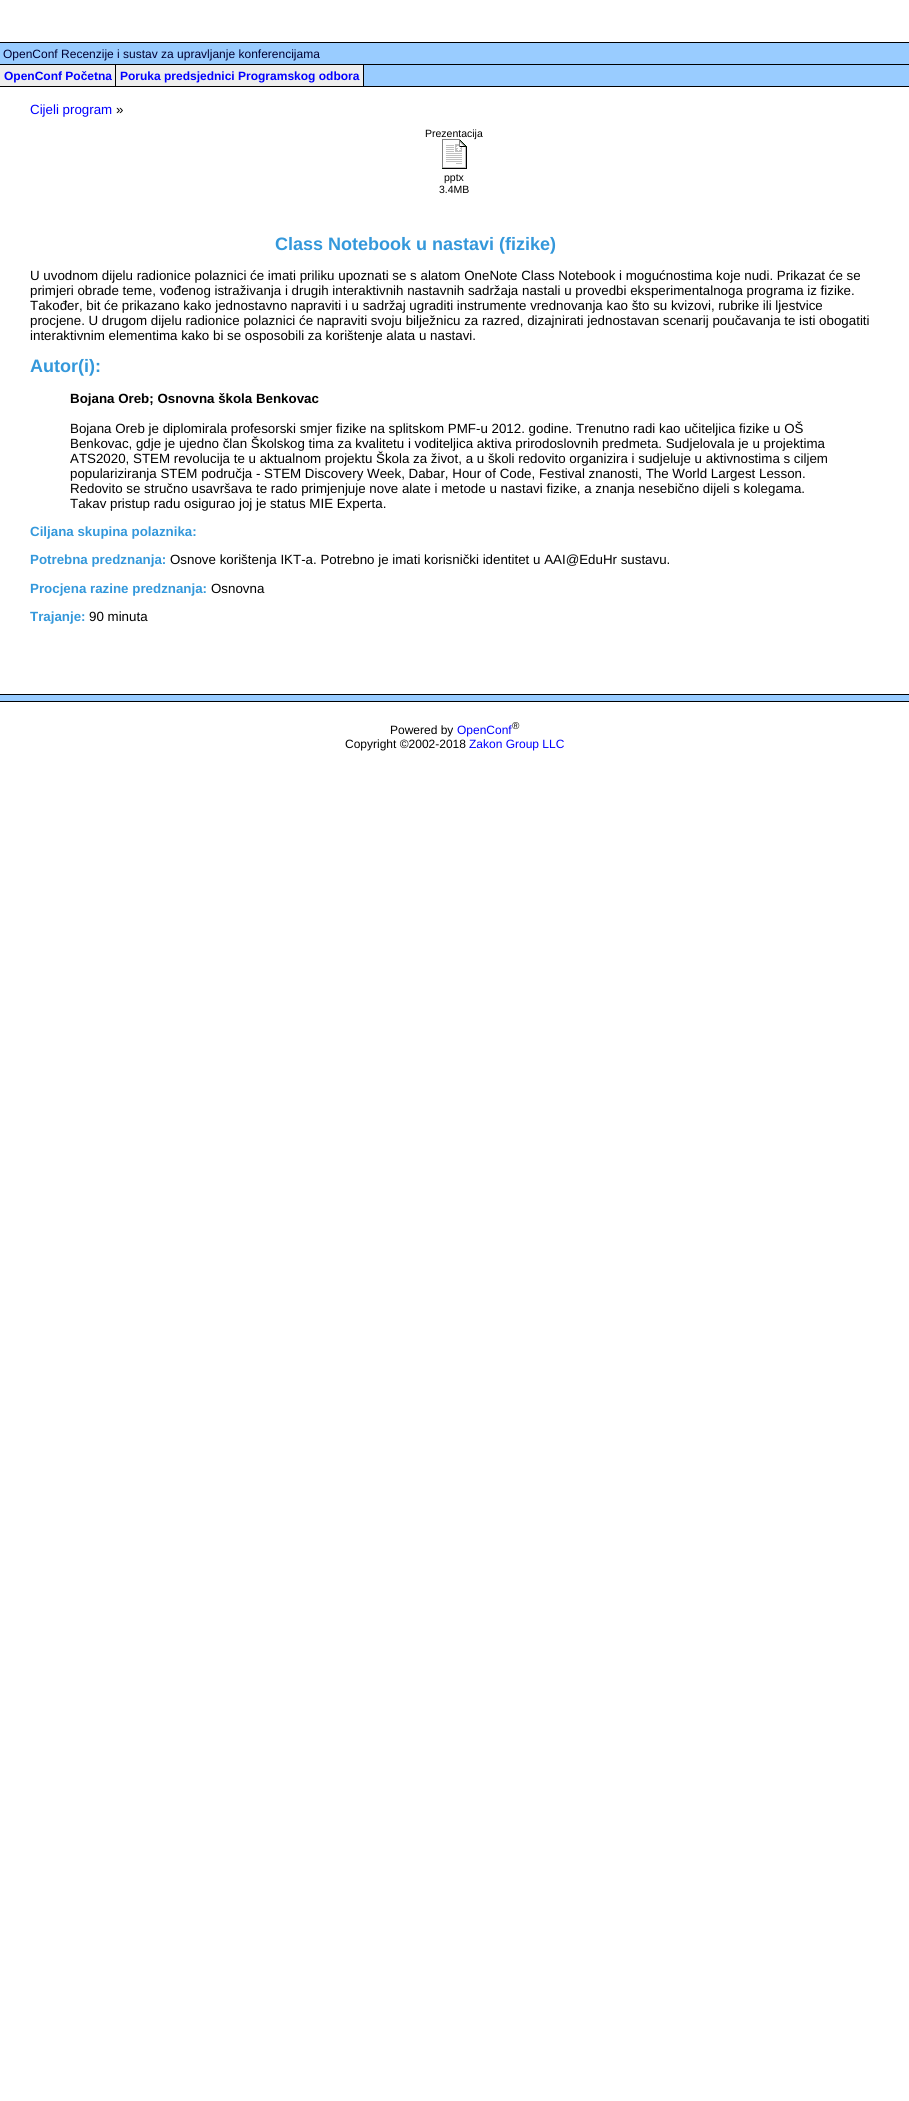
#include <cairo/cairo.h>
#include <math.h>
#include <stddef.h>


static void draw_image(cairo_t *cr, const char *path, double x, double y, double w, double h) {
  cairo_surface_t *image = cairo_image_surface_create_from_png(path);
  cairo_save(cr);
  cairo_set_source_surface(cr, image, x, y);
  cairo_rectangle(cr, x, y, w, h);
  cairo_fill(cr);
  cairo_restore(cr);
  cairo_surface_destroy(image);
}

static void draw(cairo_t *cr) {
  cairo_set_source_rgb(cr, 1, 1, 1);
  cairo_paint(cr);
  cairo_set_source_rgb(cr, 153 / 255.0, 204 / 255.0, 1);
  cairo_rectangle(cr, 0, 43, 909, 21);
  cairo_fill(cr);
  cairo_set_source_rgb(cr, 0, 0, 0);
  cairo_rectangle(cr, 0, 42, 909, 1);
  cairo_fill(cr);
  cairo_rectangle(cr, 0, 64, 909, 1);
  cairo_fill(cr);
  cairo_set_source_rgb(cr, 153 / 255.0, 204 / 255.0, 1);
  cairo_rectangle(cr, 364, 65, 545, 21);
  cairo_fill(cr);
  cairo_set_source_rgb(cr, 0, 0, 0);
  cairo_rectangle(cr, 0, 86, 909, 1);
  cairo_fill(cr);
  cairo_set_source_rgb(cr, 238 / 255.0, 238 / 255.0, 238 / 255.0);
  cairo_rectangle(cr, 0, 65, 115, 21);
  cairo_fill(cr);
  cairo_set_source_rgb(cr, 0, 0, 0);
  cairo_rectangle(cr, 115, 65, 1, 21);
  cairo_fill(cr);
  cairo_set_source_rgb(cr, 238 / 255.0, 238 / 255.0, 238 / 255.0);
  cairo_rectangle(cr, 116, 65, 247, 21);
  cairo_fill(cr);
  cairo_set_source_rgb(cr, 0, 0, 0);
  cairo_rectangle(cr, 363, 65, 1, 21);
  cairo_fill(cr);
  cairo_set_source_rgb(cr, 153 / 255.0, 204 / 255.0, 1);
  cairo_rectangle(cr, 0, 695, 909, 6);
  cairo_fill(cr);
  cairo_set_source_rgb(cr, 0, 0, 0);
  cairo_rectangle(cr, 0, 694, 909, 1);
  cairo_fill(cr);
  cairo_rectangle(cr, 0, 701, 909, 1);
  cairo_fill(cr);
  cairo_select_font_face(cr, "Liberation Sans", CAIRO_FONT_SLANT_NORMAL, CAIRO_FONT_WEIGHT_NORMAL);
  cairo_set_font_size(cr, 12);
  cairo_set_source_rgb(cr, 0, 0, 51 / 255.0);
  cairo_move_to(cr, 3, 58);
  cairo_show_text(cr, "OpenConf Recenzije i sustav za upravljanje konferencijama");
  cairo_select_font_face(cr, "Liberation Sans", CAIRO_FONT_SLANT_NORMAL, CAIRO_FONT_WEIGHT_BOLD);
  cairo_set_source_rgb(cr, 0, 0, 1);
  cairo_move_to(cr, 4, 80);
  cairo_show_text(cr, "OpenConf Početna");
  cairo_move_to(cr, 120, 80);
  cairo_show_text(cr, "Poruka predsjednici Programskog odbora");
  cairo_select_font_face(cr, "Liberation Sans", CAIRO_FONT_SLANT_NORMAL, CAIRO_FONT_WEIGHT_NORMAL);
  cairo_set_font_size(cr, 13.33);
  cairo_move_to(cr, 30, 114);
  cairo_show_text(cr, "Cijeli program");
  cairo_set_source_rgb(cr, 0, 0, 0);
  cairo_move_to(cr, 116, 114);
  cairo_show_text(cr, "»");
  cairo_set_font_size(cr, 10.5);
  cairo_move_to(cr, 425, 137);
  cairo_show_text(cr, "Prezentacija");
  draw_image(cr, "images/1.png", 442, 139, 25, 30);
  cairo_move_to(cr, 444, 181);
  cairo_show_text(cr, "pptx");
  cairo_move_to(cr, 439, 193);
  cairo_show_text(cr, "3.4MB");
  cairo_select_font_face(cr, "Liberation Sans", CAIRO_FONT_SLANT_NORMAL, CAIRO_FONT_WEIGHT_BOLD);
  cairo_set_font_size(cr, 18);
  cairo_set_source_rgb(cr, 52 / 255.0, 152 / 255.0, 219 / 255.0);
  cairo_move_to(cr, 275, 250);
  cairo_show_text(cr, "Class Notebook u nastavi (fizike)");
  cairo_select_font_face(cr, "Liberation Sans", CAIRO_FONT_SLANT_NORMAL, CAIRO_FONT_WEIGHT_NORMAL);
  cairo_set_font_size(cr, 13.33);
  cairo_set_source_rgb(cr, 0, 0, 0);
  cairo_move_to(cr, 30, 280);
  cairo_show_text(cr, "U uvodnom dijelu radionice polaznici će imati priliku upoznati se s alatom OneNote Class Notebook i mogućnostima koje nudi. Prikazat će se");
  cairo_move_to(cr, 30, 295);
  cairo_show_text(cr, "primjeri obrade teme, vođenog istraživanja i drugih interaktivnih nastavnih sadržaja nastali u provedbi eksperimentalnoga programa iz fizike.");
  cairo_move_to(cr, 30, 310);
  cairo_show_text(cr, "Također, bit će prikazano kako jednostavno napraviti i u sadržaj ugraditi instrumente vrednovanja kao što su kvizovi, rubrike ili ljestvice");
  cairo_move_to(cr, 30, 325);
  cairo_show_text(cr, "procjene. U drugom dijelu radionice polaznici će napraviti svoju bilježnicu za razred, dizajnirati jednostavan scenarij poučavanja te isti obogatiti");
  cairo_move_to(cr, 30, 340);
  cairo_show_text(cr, "interaktivnim elementima kako bi se osposobili za korištenje alata u nastavi.");
  cairo_select_font_face(cr, "Liberation Sans", CAIRO_FONT_SLANT_NORMAL, CAIRO_FONT_WEIGHT_BOLD);
  cairo_set_font_size(cr, 18);
  cairo_set_source_rgb(cr, 52 / 255.0, 152 / 255.0, 219 / 255.0);
  cairo_move_to(cr, 30, 372);
  cairo_show_text(cr, "Autor(i):");
  cairo_set_font_size(cr, 13.33);
  cairo_set_source_rgb(cr, 0, 0, 0);
  cairo_move_to(cr, 70, 403);
  cairo_show_text(cr, "Bojana Oreb; Osnovna škola Benkovac");
  cairo_select_font_face(cr, "Liberation Sans", CAIRO_FONT_SLANT_NORMAL, CAIRO_FONT_WEIGHT_NORMAL);
  cairo_move_to(cr, 70, 433);
  cairo_show_text(cr, "Bojana Oreb je diplomirala profesorski smjer fizike na splitskom PMF-u 2012. godine. Trenutno radi kao učiteljica fizike u OŠ");
  cairo_move_to(cr, 70, 448);
  cairo_show_text(cr, "Benkovac, gdje je ujedno član Školskog tima za kvalitetu i voditeljica aktiva prirodoslovnih predmeta. Sudjelovala je u projektima");
  cairo_move_to(cr, 70, 463);
  cairo_show_text(cr, "ATS2020, STEM revolucija te u aktualnom projektu Škola za život, a u školi redovito organizira i sudjeluje u aktivnostima s ciljem");
  cairo_move_to(cr, 70, 478);
  cairo_show_text(cr, "populariziranja STEM područja - STEM Discovery Week, Dabar, Hour of Code, Festival znanosti, The World Largest Lesson.");
  cairo_move_to(cr, 70, 493);
  cairo_show_text(cr, "Redovito se stručno usavršava te rado primjenjuje nove alate i metode u nastavi fizike, a znanja nesebično dijeli s kolegama.");
  cairo_move_to(cr, 70, 508);
  cairo_show_text(cr, "Takav pristup radu osigurao joj je status MIE Experta.");
  cairo_select_font_face(cr, "Liberation Sans", CAIRO_FONT_SLANT_NORMAL, CAIRO_FONT_WEIGHT_BOLD);
  cairo_set_source_rgb(cr, 52 / 255.0, 152 / 255.0, 219 / 255.0);
  cairo_move_to(cr, 30, 536);
  cairo_show_text(cr, "Ciljana skupina polaznika:");
  cairo_move_to(cr, 30, 564);
  cairo_show_text(cr, "Potrebna predznanja:");
  cairo_select_font_face(cr, "Liberation Sans", CAIRO_FONT_SLANT_NORMAL, CAIRO_FONT_WEIGHT_NORMAL);
  cairo_set_source_rgb(cr, 0, 0, 0);
  cairo_move_to(cr, 170, 564);
  cairo_show_text(cr, "Osnove korištenja IKT-a. Potrebno je imati korisnički identitet u AAI@EduHr sustavu.");
  cairo_select_font_face(cr, "Liberation Sans", CAIRO_FONT_SLANT_NORMAL, CAIRO_FONT_WEIGHT_BOLD);
  cairo_set_source_rgb(cr, 52 / 255.0, 152 / 255.0, 219 / 255.0);
  cairo_move_to(cr, 30, 593);
  cairo_show_text(cr, "Procjena razine predznanja:");
  cairo_select_font_face(cr, "Liberation Sans", CAIRO_FONT_SLANT_NORMAL, CAIRO_FONT_WEIGHT_NORMAL);
  cairo_set_source_rgb(cr, 0, 0, 0);
  cairo_move_to(cr, 211, 593);
  cairo_show_text(cr, "Osnovna");
  cairo_select_font_face(cr, "Liberation Sans", CAIRO_FONT_SLANT_NORMAL, CAIRO_FONT_WEIGHT_BOLD);
  cairo_set_source_rgb(cr, 52 / 255.0, 152 / 255.0, 219 / 255.0);
  cairo_move_to(cr, 30, 621);
  cairo_show_text(cr, "Trajanje:");
  cairo_select_font_face(cr, "Liberation Sans", CAIRO_FONT_SLANT_NORMAL, CAIRO_FONT_WEIGHT_NORMAL);
  cairo_set_source_rgb(cr, 0, 0, 0);
  cairo_move_to(cr, 89, 621);
  cairo_show_text(cr, "90 minuta");
  cairo_set_font_size(cr, 12);
  cairo_move_to(cr, 390, 734);
  cairo_show_text(cr, "Powered by");
  cairo_set_source_rgb(cr, 0, 0, 1);
  cairo_move_to(cr, 457, 734);
  cairo_show_text(cr, "OpenConf");
  cairo_set_font_size(cr, 10);
  cairo_set_source_rgb(cr, 0, 0, 0);
  cairo_move_to(cr, 512, 729);
  cairo_show_text(cr, "®");
  cairo_set_font_size(cr, 12);
  cairo_move_to(cr, 345, 748);
  cairo_show_text(cr, "Copyright ©2002-2018");
  cairo_set_source_rgb(cr, 0, 0, 1);
  cairo_move_to(cr, 469, 748);
  cairo_show_text(cr, "Zakon Group LLC");
}

int main(void) {
  cairo_surface_t *surface = cairo_image_surface_create(CAIRO_FORMAT_RGB24, 909, 2101);
  cairo_t *cr = cairo_create(surface);
  cairo_font_options_t *options = cairo_font_options_create();
  cairo_font_options_set_hint_metrics(options, CAIRO_HINT_METRICS_OFF);
  cairo_font_options_set_hint_style(options, CAIRO_HINT_STYLE_NONE);
  cairo_set_font_options(cr, options);
  cairo_set_miter_limit(cr, 4);
  draw(cr);
  cairo_surface_write_to_png(surface, "out.png");
  cairo_font_options_destroy(options);
  cairo_destroy(cr);
  cairo_surface_destroy(surface);
  return 0;
}
